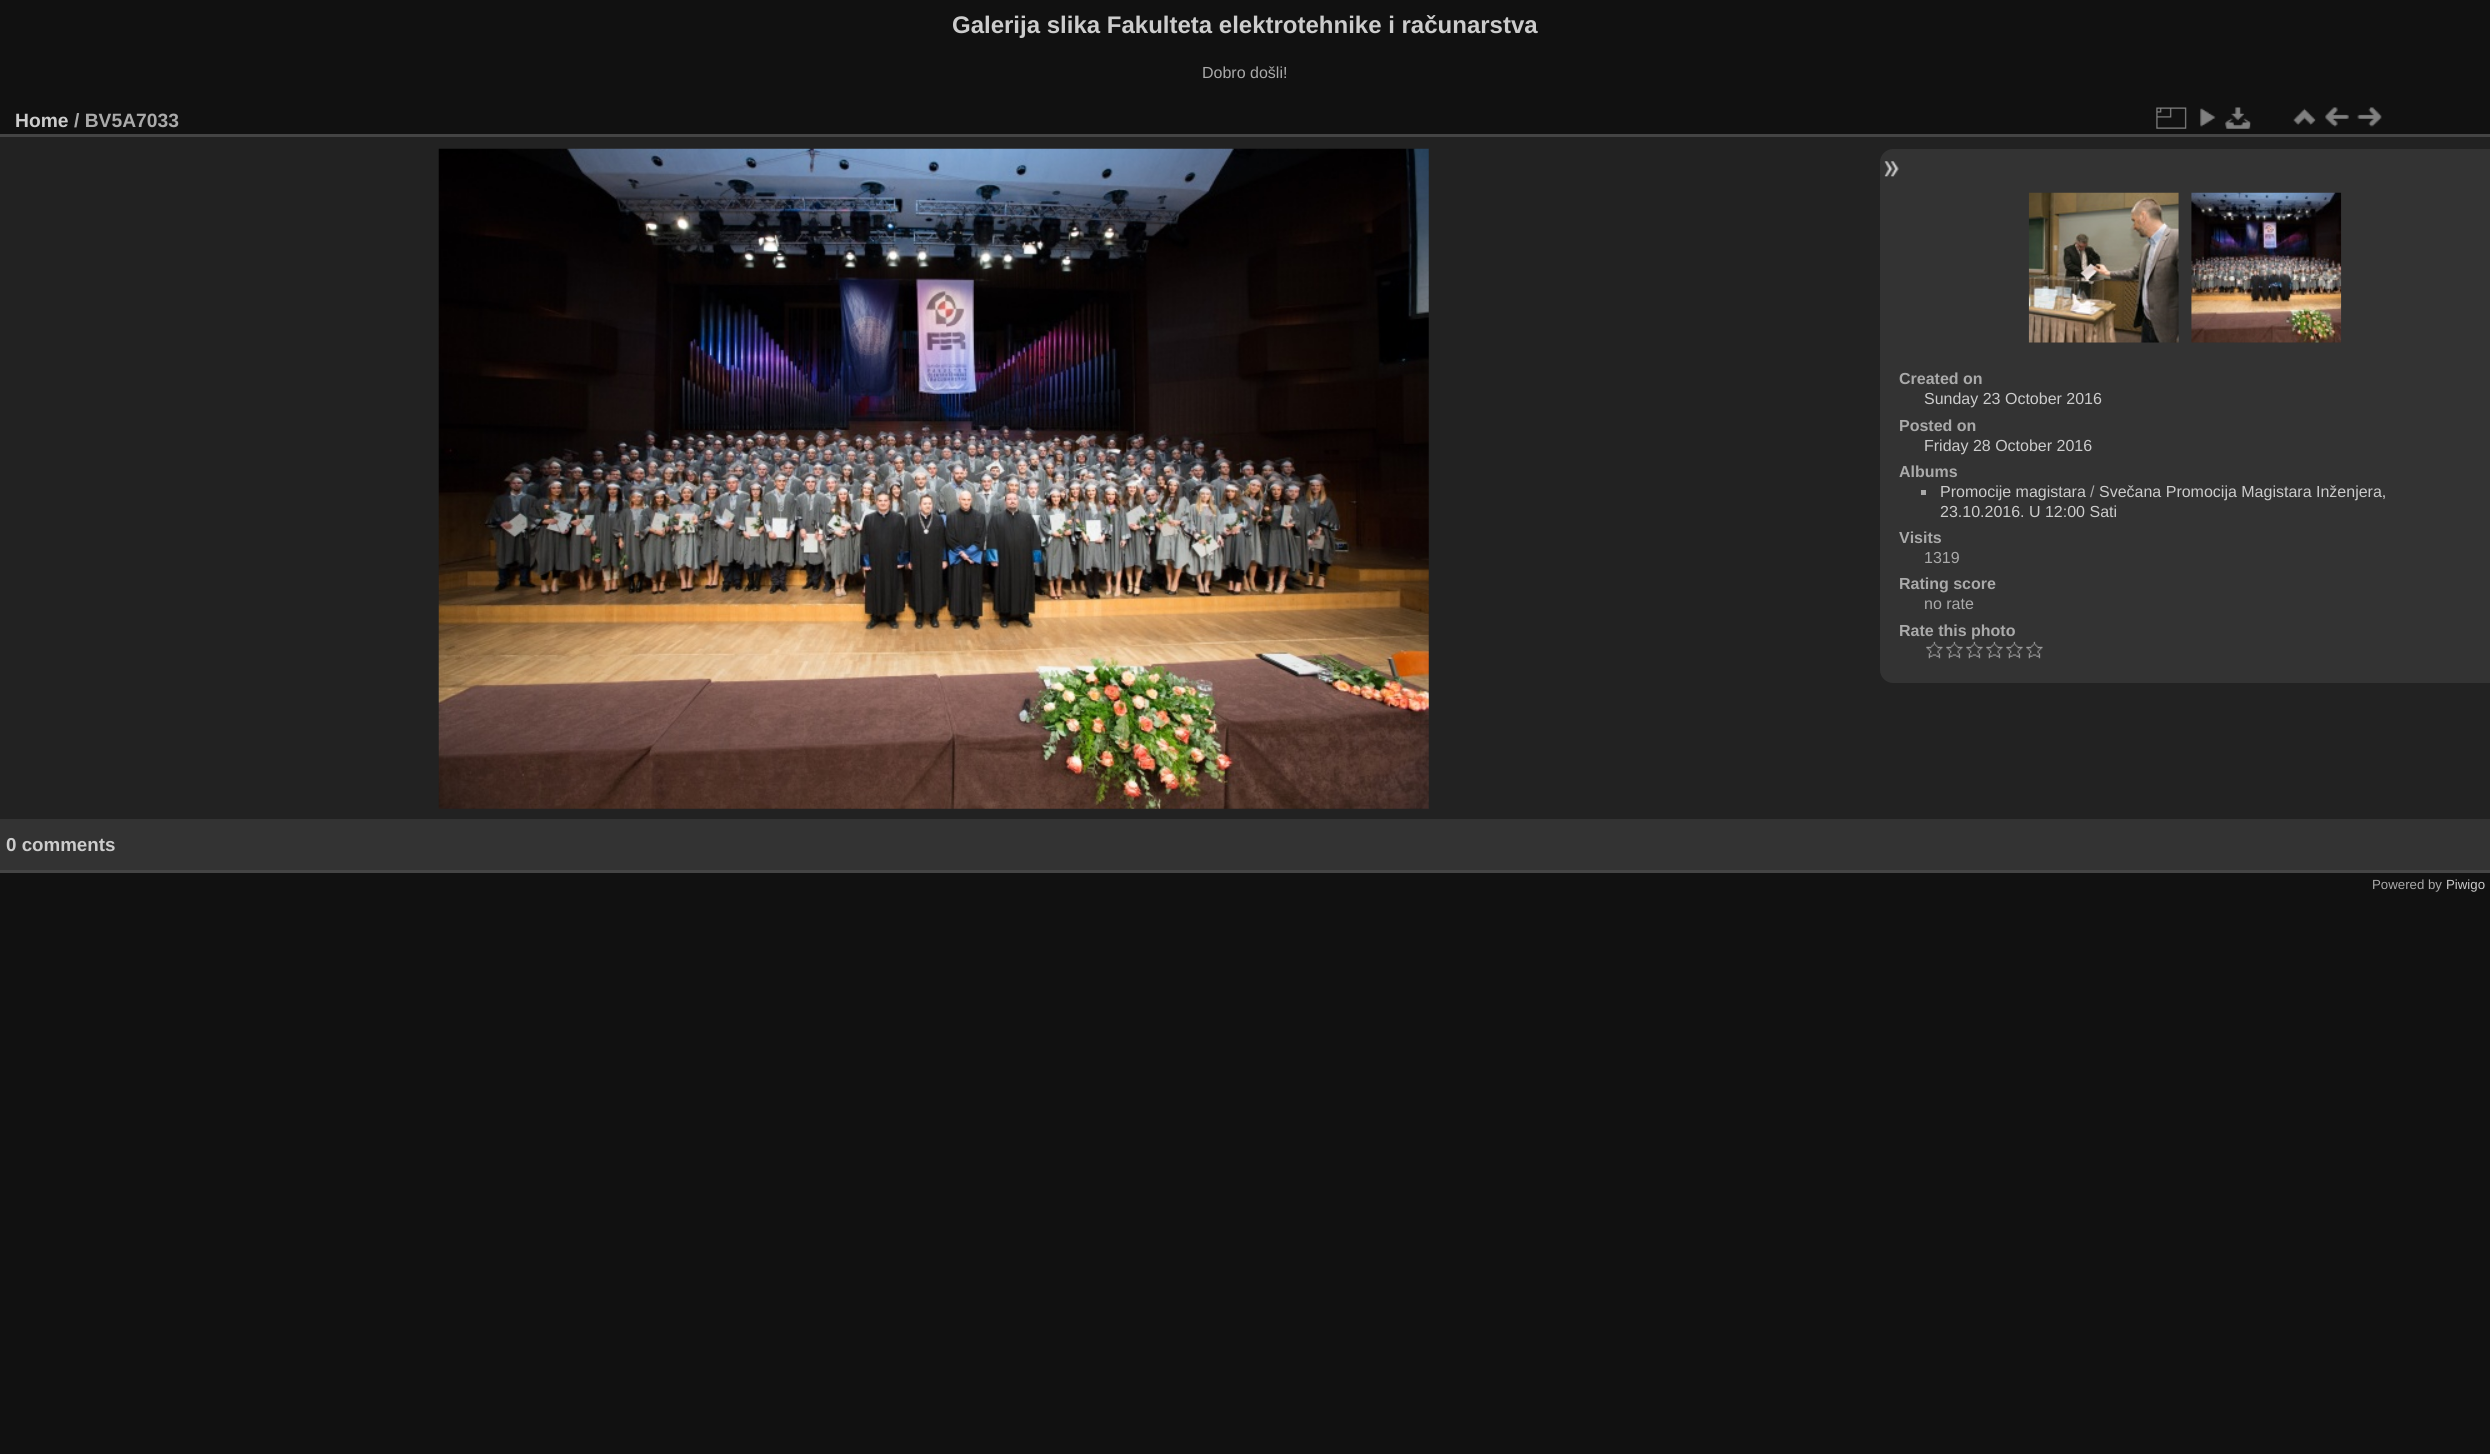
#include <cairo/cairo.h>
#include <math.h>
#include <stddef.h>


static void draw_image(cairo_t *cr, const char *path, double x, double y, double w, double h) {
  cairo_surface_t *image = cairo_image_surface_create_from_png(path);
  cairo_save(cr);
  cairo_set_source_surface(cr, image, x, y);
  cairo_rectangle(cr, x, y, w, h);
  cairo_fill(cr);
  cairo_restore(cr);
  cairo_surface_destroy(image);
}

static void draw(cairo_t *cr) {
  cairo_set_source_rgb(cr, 17 / 255.0, 17 / 255.0, 17 / 255.0);
  cairo_paint(cr);
  cairo_set_source_rgb(cr, 34 / 255.0, 34 / 255.0, 34 / 255.0);
  cairo_rectangle(cr, 0, 137, 2490, 682);
  cairo_fill(cr);
  cairo_set_source_rgb(cr, 68 / 255.0, 68 / 255.0, 68 / 255.0);
  cairo_rectangle(cr, 0, 870, 2490, 3);
  cairo_fill(cr);
  cairo_rectangle(cr, 0, 134, 2490, 3);
  cairo_fill(cr);
  draw_image(cr, "images/1.png", 2156, 107, 31, 22);
  draw_image(cr, "images/2.png", 2200, 108, 16, 19);
  draw_image(cr, "images/3.png", 2225, 107, 26, 22);
  draw_image(cr, "images/4.png", 2293, 108, 23, 17);
  draw_image(cr, "images/5.png", 2325, 107, 24, 20);
  draw_image(cr, "images/6.png", 2357, 107, 25, 20);
  draw_image(cr, "images/7.png", 438, 148, 991, 661);
  cairo_set_source_rgb(cr, 51 / 255.0, 51 / 255.0, 51 / 255.0);
  cairo_new_path(cr);
  cairo_move_to(cr, 1893, 149);
  cairo_line_to(cr, 2490, 149);
  cairo_line_to(cr, 2490, 683);
  cairo_line_to(cr, 1893, 683);
  cairo_curve_to(cr, 1886, 683, 1880, 677, 1880, 670);
  cairo_line_to(cr, 1880, 162);
  cairo_curve_to(cr, 1880, 155, 1886, 149, 1893, 149);
  cairo_close_path(cr);
  cairo_fill(cr);
  draw_image(cr, "images/8.png", 1884, 161, 15, 16);
  draw_image(cr, "images/9.png", 2028, 192, 151, 151);
  draw_image(cr, "images/10.png", 2191, 192, 151, 151);
  cairo_set_source_rgb(cr, 170 / 255.0, 170 / 255.0, 170 / 255.0);
  cairo_rectangle(cr, 1921, 490, 5, 5);
  cairo_fill(cr);
  draw_image(cr, "images/11.png", 1926, 641, 17, 18);
  draw_image(cr, "images/12.png", 1946, 641, 17, 18);
  draw_image(cr, "images/12.png", 1966, 641, 17, 18);
  draw_image(cr, "images/12.png", 1986, 641, 17, 18);
  draw_image(cr, "images/12.png", 2006, 641, 17, 18);
  draw_image(cr, "images/13.png", 2026, 641, 17, 18);
  cairo_set_source_rgb(cr, 51 / 255.0, 51 / 255.0, 51 / 255.0);
  cairo_rectangle(cr, 0, 819, 2490, 51);
  cairo_fill(cr);
  cairo_select_font_face(cr, "Liberation Sans", CAIRO_FONT_SLANT_NORMAL, CAIRO_FONT_WEIGHT_BOLD);
  cairo_set_font_size(cr, 24);
  cairo_set_source_rgb(cr, 204 / 255.0, 204 / 255.0, 204 / 255.0);
  cairo_move_to(cr, 952, 33);
  cairo_show_text(cr, "Galerija slika Fakulteta elektrotehnike i računarstva");
  cairo_select_font_face(cr, "Liberation Sans", CAIRO_FONT_SLANT_NORMAL, CAIRO_FONT_WEIGHT_NORMAL);
  cairo_set_font_size(cr, 16);
  cairo_set_source_rgb(cr, 170 / 255.0, 170 / 255.0, 170 / 255.0);
  cairo_move_to(cr, 1202, 78);
  cairo_show_text(cr, "Dobro došli!");
  cairo_select_font_face(cr, "Liberation Sans", CAIRO_FONT_SLANT_NORMAL, CAIRO_FONT_WEIGHT_BOLD);
  cairo_set_font_size(cr, 19.25);
  cairo_set_source_rgb(cr, 204 / 255.0, 204 / 255.0, 204 / 255.0);
  cairo_move_to(cr, 15, 127);
  cairo_show_text(cr, "Home");
  cairo_set_source_rgb(cr, 170 / 255.0, 170 / 255.0, 170 / 255.0);
  cairo_move_to(cr, 74, 127);
  cairo_show_text(cr, "/ BV5A7033");
  cairo_set_font_size(cr, 16);
  cairo_move_to(cr, 1899, 384);
  cairo_show_text(cr, "Created on");
  cairo_select_font_face(cr, "Liberation Sans", CAIRO_FONT_SLANT_NORMAL, CAIRO_FONT_WEIGHT_NORMAL);
  cairo_set_source_rgb(cr, 204 / 255.0, 204 / 255.0, 204 / 255.0);
  cairo_move_to(cr, 1924, 404);
  cairo_show_text(cr, "Sunday 23 October 2016");
  cairo_select_font_face(cr, "Liberation Sans", CAIRO_FONT_SLANT_NORMAL, CAIRO_FONT_WEIGHT_BOLD);
  cairo_set_source_rgb(cr, 170 / 255.0, 170 / 255.0, 170 / 255.0);
  cairo_move_to(cr, 1899, 431);
  cairo_show_text(cr, "Posted on");
  cairo_select_font_face(cr, "Liberation Sans", CAIRO_FONT_SLANT_NORMAL, CAIRO_FONT_WEIGHT_NORMAL);
  cairo_set_source_rgb(cr, 204 / 255.0, 204 / 255.0, 204 / 255.0);
  cairo_move_to(cr, 1924, 451);
  cairo_show_text(cr, "Friday 28 October 2016");
  cairo_select_font_face(cr, "Liberation Sans", CAIRO_FONT_SLANT_NORMAL, CAIRO_FONT_WEIGHT_BOLD);
  cairo_set_source_rgb(cr, 170 / 255.0, 170 / 255.0, 170 / 255.0);
  cairo_move_to(cr, 1899, 477);
  cairo_show_text(cr, "Albums");
  cairo_select_font_face(cr, "Liberation Sans", CAIRO_FONT_SLANT_NORMAL, CAIRO_FONT_WEIGHT_NORMAL);
  cairo_set_source_rgb(cr, 204 / 255.0, 204 / 255.0, 204 / 255.0);
  cairo_move_to(cr, 1940, 497);
  cairo_show_text(cr, "Promocije magistara");
  cairo_set_source_rgb(cr, 170 / 255.0, 170 / 255.0, 170 / 255.0);
  cairo_move_to(cr, 2090, 497);
  cairo_show_text(cr, "/");
  cairo_set_source_rgb(cr, 204 / 255.0, 204 / 255.0, 204 / 255.0);
  cairo_move_to(cr, 2099, 497);
  cairo_show_text(cr, "Svečana Promocija Magistara Inženjera,");
  cairo_move_to(cr, 1940, 517);
  cairo_show_text(cr, "23.10.2016. U 12:00 Sati");
  cairo_select_font_face(cr, "Liberation Sans", CAIRO_FONT_SLANT_NORMAL, CAIRO_FONT_WEIGHT_BOLD);
  cairo_set_source_rgb(cr, 170 / 255.0, 170 / 255.0, 170 / 255.0);
  cairo_move_to(cr, 1899, 543);
  cairo_show_text(cr, "Visits");
  cairo_select_font_face(cr, "Liberation Sans", CAIRO_FONT_SLANT_NORMAL, CAIRO_FONT_WEIGHT_NORMAL);
  cairo_move_to(cr, 1924, 563);
  cairo_show_text(cr, "1319");
  cairo_select_font_face(cr, "Liberation Sans", CAIRO_FONT_SLANT_NORMAL, CAIRO_FONT_WEIGHT_BOLD);
  cairo_move_to(cr, 1899, 589);
  cairo_show_text(cr, "Rating score");
  cairo_select_font_face(cr, "Liberation Sans", CAIRO_FONT_SLANT_NORMAL, CAIRO_FONT_WEIGHT_NORMAL);
  cairo_move_to(cr, 1924, 609);
  cairo_show_text(cr, "no rate");
  cairo_select_font_face(cr, "Liberation Sans", CAIRO_FONT_SLANT_NORMAL, CAIRO_FONT_WEIGHT_BOLD);
  cairo_move_to(cr, 1899, 636);
  cairo_show_text(cr, "Rate this photo");
  cairo_set_font_size(cr, 18.75);
  cairo_set_source_rgb(cr, 204 / 255.0, 204 / 255.0, 204 / 255.0);
  cairo_move_to(cr, 6, 851);
  cairo_show_text(cr, "0 comments");
  cairo_select_font_face(cr, "Liberation Sans", CAIRO_FONT_SLANT_NORMAL, CAIRO_FONT_WEIGHT_NORMAL);
  cairo_set_font_size(cr, 13.25);
  cairo_set_source_rgb(cr, 170 / 255.0, 170 / 255.0, 170 / 255.0);
  cairo_move_to(cr, 2372, 889);
  cairo_show_text(cr, "Powered by");
  cairo_set_source_rgb(cr, 204 / 255.0, 204 / 255.0, 204 / 255.0);
  cairo_move_to(cr, 2446, 889);
  cairo_show_text(cr, "Piwigo");
}

int main(void) {
  cairo_surface_t *surface = cairo_image_surface_create(CAIRO_FORMAT_RGB24, 2490, 1454);
  cairo_t *cr = cairo_create(surface);
  cairo_font_options_t *options = cairo_font_options_create();
  cairo_font_options_set_hint_metrics(options, CAIRO_HINT_METRICS_OFF);
  cairo_font_options_set_hint_style(options, CAIRO_HINT_STYLE_NONE);
  cairo_set_font_options(cr, options);
  cairo_set_miter_limit(cr, 4);
  draw(cr);
  cairo_surface_write_to_png(surface, "out.png");
  cairo_font_options_destroy(options);
  cairo_destroy(cr);
  cairo_surface_destroy(surface);
  return 0;
}
